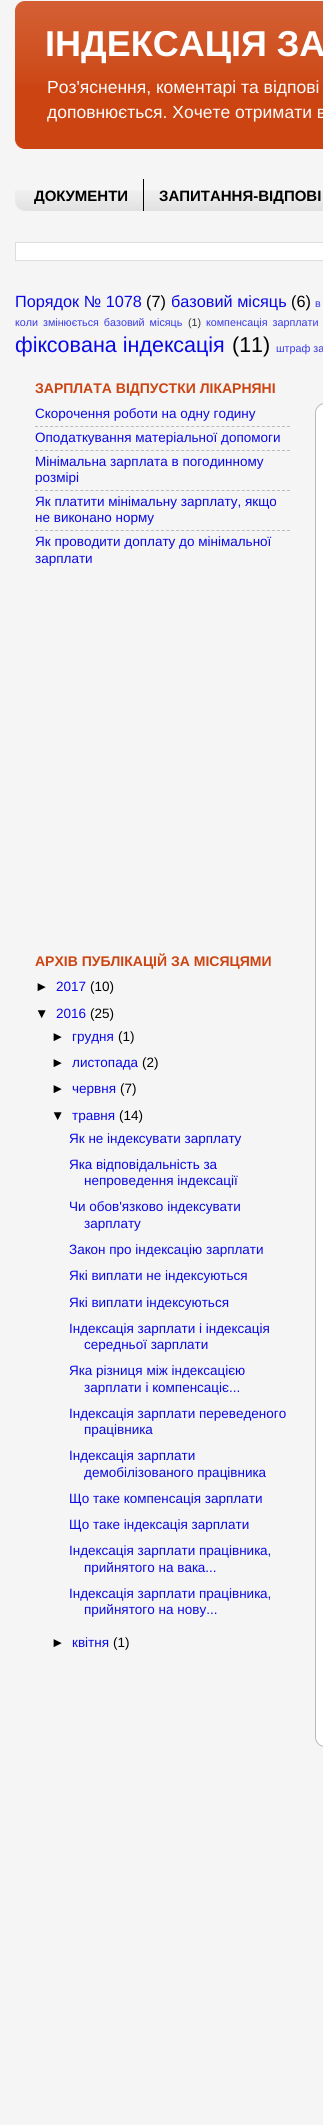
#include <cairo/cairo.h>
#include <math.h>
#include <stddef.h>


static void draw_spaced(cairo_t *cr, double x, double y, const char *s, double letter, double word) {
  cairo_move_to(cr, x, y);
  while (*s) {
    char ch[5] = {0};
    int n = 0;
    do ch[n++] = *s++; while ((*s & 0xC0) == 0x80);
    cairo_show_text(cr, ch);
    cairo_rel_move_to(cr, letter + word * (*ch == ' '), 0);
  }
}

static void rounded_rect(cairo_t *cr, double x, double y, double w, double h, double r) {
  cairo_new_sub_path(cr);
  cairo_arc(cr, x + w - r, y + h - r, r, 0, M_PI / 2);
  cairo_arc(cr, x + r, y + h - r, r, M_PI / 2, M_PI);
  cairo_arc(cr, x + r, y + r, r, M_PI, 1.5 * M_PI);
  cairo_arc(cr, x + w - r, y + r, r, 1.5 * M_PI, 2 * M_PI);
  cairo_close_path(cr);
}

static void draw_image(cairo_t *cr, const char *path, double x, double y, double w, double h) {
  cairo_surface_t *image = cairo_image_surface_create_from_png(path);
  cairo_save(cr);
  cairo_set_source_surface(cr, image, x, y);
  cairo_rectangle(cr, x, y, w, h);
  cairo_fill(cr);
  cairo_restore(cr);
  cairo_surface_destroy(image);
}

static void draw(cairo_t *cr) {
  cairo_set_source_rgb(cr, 245 / 255.0, 245 / 255.0, 245 / 255.0);
  cairo_paint(cr);
  cairo_set_source_rgb(cr, 204 / 255.0, 68 / 255.0, 17 / 255.0);
  rounded_rect(cr, 15, 1, 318, 148, 10);
  cairo_fill(cr);
  draw_image(cr, "images/1.png", 15, 1, 308, 84);
  draw_image(cr, "images/2.png", 15, 190, 308, 21);
  cairo_set_source_rgb(cr, 0, 0, 0);
  cairo_rectangle(cr, 143, 179, 1, 32);
  cairo_fill(cr);
  cairo_set_source_rgb(cr, 1, 1, 1);
  cairo_rectangle(cr, 15.5, 242.5, 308, 18);
  cairo_fill_preserve(cr);
  cairo_set_source_rgb(cr, 221 / 255.0, 221 / 255.0, 221 / 255.0);
  cairo_set_line_width(cr, 1);
  cairo_stroke(cr);
  cairo_new_path(cr);
  cairo_move_to(cr, 35, 426.5);
  cairo_line_to(cr, 290, 426.5);
  cairo_set_source_rgb(cr, 187 / 255.0, 187 / 255.0, 187 / 255.0);
  cairo_set_dash(cr, (double[]){3, 2.04}, 2, 0);
  cairo_stroke(cr);
  cairo_new_path(cr);
  cairo_move_to(cr, 35, 450.5);
  cairo_line_to(cr, 290, 450.5);
  cairo_stroke(cr);
  cairo_new_path(cr);
  cairo_move_to(cr, 35, 490.5);
  cairo_line_to(cr, 290, 490.5);
  cairo_stroke(cr);
  cairo_new_path(cr);
  cairo_move_to(cr, 35, 530.5);
  cairo_line_to(cr, 290, 530.5);
  cairo_stroke(cr);
  cairo_set_source_rgb(cr, 1, 1, 1);
  rounded_rect(cr, 315.5, 403.5, 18, 1343, 9.5);
  cairo_fill_preserve(cr);
  cairo_set_source_rgb(cr, 187 / 255.0, 187 / 255.0, 187 / 255.0);
  cairo_set_dash(cr, NULL, 0, 0);
  cairo_stroke(cr);
  cairo_select_font_face(cr, "Liberation Sans", CAIRO_FONT_SLANT_NORMAL, CAIRO_FONT_WEIGHT_BOLD);
  cairo_set_font_size(cr, 36);
  cairo_set_source_rgb(cr, 1, 1, 1);
  cairo_move_to(cr, 45, 56);
  cairo_show_text(cr, "ІНДЕКСАЦІЯ ЗА");
  cairo_select_font_face(cr, "Liberation Sans", CAIRO_FONT_SLANT_NORMAL, CAIRO_FONT_WEIGHT_NORMAL);
  cairo_set_font_size(cr, 17.5);
  cairo_move_to(cr, 47, 93);
  cairo_show_text(cr, "Роз'яснення, коментарі та відпові");
  cairo_move_to(cr, 47, 118);
  cairo_show_text(cr, "доповнюється. Хочете отримати в");
  cairo_select_font_face(cr, "Liberation Sans", CAIRO_FONT_SLANT_NORMAL, CAIRO_FONT_WEIGHT_BOLD);
  cairo_set_font_size(cr, 15);
  cairo_set_source_rgb(cr, 0, 0, 0);
  cairo_move_to(cr, 34, 201);
  cairo_show_text(cr, "ДОКУМЕНТИ");
  cairo_move_to(cr, 159, 201);
  cairo_show_text(cr, "ЗАПИТАННЯ-ВІДПОВІ");
  cairo_select_font_face(cr, "Liberation Sans", CAIRO_FONT_SLANT_NORMAL, CAIRO_FONT_WEIGHT_NORMAL);
  cairo_set_font_size(cr, 16.25);
  cairo_set_source_rgb(cr, 9 / 255.0, 9 / 255.0, 229 / 255.0);
  cairo_move_to(cr, 15, 307);
  cairo_show_text(cr, "Порядок № 1078");
  cairo_set_source_rgb(cr, 0, 0, 0);
  cairo_move_to(cr, 146, 307);
  cairo_show_text(cr, "(7)");
  cairo_set_source_rgb(cr, 9 / 255.0, 9 / 255.0, 229 / 255.0);
  cairo_move_to(cr, 171, 307);
  cairo_show_text(cr, "базовий місяць");
  cairo_set_source_rgb(cr, 0, 0, 0);
  cairo_move_to(cr, 291, 307);
  cairo_show_text(cr, "(6)");
  cairo_set_font_size(cr, 10.75);
  cairo_set_source_rgb(cr, 56 / 255.0, 56 / 255.0, 232 / 255.0);
  cairo_move_to(cr, 315, 307);
  cairo_show_text(cr, "в");
  draw_spaced(cr, 15, 326, "коли змінюється базовий місяць", 0, 2);
  cairo_set_source_rgb(cr, 49 / 255.0, 49 / 255.0, 49 / 255.0);
  cairo_move_to(cr, 188, 326);
  cairo_show_text(cr, "(1)");
  cairo_set_source_rgb(cr, 56 / 255.0, 56 / 255.0, 232 / 255.0);
  draw_spaced(cr, 206, 326, "компенсація зарплати", 0, 2);
  cairo_set_font_size(cr, 21.5);
  cairo_set_source_rgb(cr, 9 / 255.0, 9 / 255.0, 229 / 255.0);
  cairo_move_to(cr, 15, 352);
  cairo_show_text(cr, "фіксована індексація");
  cairo_set_source_rgb(cr, 0, 0, 0);
  cairo_move_to(cr, 232, 352);
  cairo_show_text(cr, "(11)");
  cairo_set_font_size(cr, 10.75);
  cairo_set_source_rgb(cr, 56 / 255.0, 56 / 255.0, 232 / 255.0);
  cairo_move_to(cr, 276, 352);
  cairo_show_text(cr, "штраф за");
  cairo_select_font_face(cr, "Liberation Sans", CAIRO_FONT_SLANT_NORMAL, CAIRO_FONT_WEIGHT_BOLD);
  cairo_set_font_size(cr, 14);
  cairo_set_source_rgb(cr, 204 / 255.0, 68 / 255.0, 17 / 255.0);
  cairo_move_to(cr, 35, 393);
  cairo_show_text(cr, "ЗАРПЛАТА ВІДПУСТКИ ЛІКАРНЯНІ");
  cairo_select_font_face(cr, "Liberation Sans", CAIRO_FONT_SLANT_NORMAL, CAIRO_FONT_WEIGHT_NORMAL);
  cairo_set_font_size(cr, 13.5);
  cairo_set_source_rgb(cr, 9 / 255.0, 9 / 255.0, 229 / 255.0);
  cairo_move_to(cr, 35, 418);
  cairo_show_text(cr, "Скорочення роботи на одну годину");
  cairo_move_to(cr, 35, 442);
  cairo_show_text(cr, "Оподаткування матеріальної допомоги");
  cairo_move_to(cr, 35, 466);
  cairo_show_text(cr, "Мінімальна зарплата в погодинному");
  cairo_move_to(cr, 35, 482);
  cairo_show_text(cr, "розмірі");
  cairo_move_to(cr, 35, 506);
  cairo_show_text(cr, "Як платити мінімальну зарплату, якщо");
  cairo_move_to(cr, 35, 522);
  cairo_show_text(cr, "не виконано норму");
  cairo_move_to(cr, 35, 546);
  cairo_show_text(cr, "Як проводити доплату до мінімальної");
  cairo_move_to(cr, 35, 563);
  cairo_show_text(cr, "зарплати");
  cairo_select_font_face(cr, "Liberation Sans", CAIRO_FONT_SLANT_NORMAL, CAIRO_FONT_WEIGHT_BOLD);
  cairo_set_font_size(cr, 14);
  cairo_set_source_rgb(cr, 204 / 255.0, 68 / 255.0, 17 / 255.0);
  cairo_move_to(cr, 35, 966);
  cairo_show_text(cr, "АРХІВ ПУБЛІКАЦІЙ ЗА МІСЯЦЯМИ");
  cairo_select_font_face(cr, "Liberation Sans", CAIRO_FONT_SLANT_NORMAL, CAIRO_FONT_WEIGHT_NORMAL);
  cairo_set_font_size(cr, 13.5);
  cairo_set_source_rgb(cr, 0, 0, 0);
  cairo_move_to(cr, 35, 991);
  cairo_show_text(cr, "►");
  cairo_set_source_rgb(cr, 9 / 255.0, 9 / 255.0, 229 / 255.0);
  cairo_move_to(cr, 56, 991);
  cairo_show_text(cr, "2017");
  cairo_set_source_rgb(cr, 0, 0, 0);
  cairo_move_to(cr, 90, 991);
  cairo_show_text(cr, "(10)");
  cairo_move_to(cr, 35, 1018);
  cairo_show_text(cr, "▼");
  cairo_set_source_rgb(cr, 9 / 255.0, 9 / 255.0, 229 / 255.0);
  cairo_move_to(cr, 56, 1018);
  cairo_show_text(cr, "2016");
  cairo_set_source_rgb(cr, 0, 0, 0);
  cairo_move_to(cr, 90, 1018);
  cairo_show_text(cr, "(25)");
  cairo_move_to(cr, 51, 1041);
  cairo_show_text(cr, "►");
  cairo_set_source_rgb(cr, 9 / 255.0, 9 / 255.0, 229 / 255.0);
  cairo_move_to(cr, 72, 1041);
  cairo_show_text(cr, "грудня");
  cairo_set_source_rgb(cr, 0, 0, 0);
  cairo_move_to(cr, 118, 1041);
  cairo_show_text(cr, "(1)");
  cairo_move_to(cr, 51, 1067);
  cairo_show_text(cr, "►");
  cairo_set_source_rgb(cr, 9 / 255.0, 9 / 255.0, 229 / 255.0);
  cairo_move_to(cr, 72, 1067);
  cairo_show_text(cr, "листопада");
  cairo_set_source_rgb(cr, 0, 0, 0);
  cairo_move_to(cr, 142, 1067);
  cairo_show_text(cr, "(2)");
  cairo_move_to(cr, 51, 1093);
  cairo_show_text(cr, "►");
  cairo_set_source_rgb(cr, 9 / 255.0, 9 / 255.0, 229 / 255.0);
  cairo_move_to(cr, 72, 1093);
  cairo_show_text(cr, "червня");
  cairo_set_source_rgb(cr, 0, 0, 0);
  cairo_move_to(cr, 120, 1093);
  cairo_show_text(cr, "(7)");
  cairo_move_to(cr, 51, 1120);
  cairo_show_text(cr, "▼");
  cairo_set_source_rgb(cr, 9 / 255.0, 9 / 255.0, 229 / 255.0);
  cairo_move_to(cr, 72, 1120);
  cairo_show_text(cr, "травня");
  cairo_set_source_rgb(cr, 0, 0, 0);
  cairo_move_to(cr, 119, 1120);
  cairo_show_text(cr, "(14)");
  cairo_set_source_rgb(cr, 9 / 255.0, 9 / 255.0, 229 / 255.0);
  cairo_move_to(cr, 69, 1143);
  cairo_show_text(cr, "Як не індексувати зарплату");
  cairo_move_to(cr, 69, 1169);
  cairo_show_text(cr, "Яка відповідальність за");
  cairo_move_to(cr, 84, 1185);
  cairo_show_text(cr, "непроведення індексації");
  cairo_move_to(cr, 69, 1211);
  cairo_show_text(cr, "Чи обов'язково індексувати");
  cairo_move_to(cr, 84, 1228);
  cairo_show_text(cr, "зарплату");
  cairo_move_to(cr, 69, 1254);
  cairo_show_text(cr, "Закон про індексацію зарплати");
  cairo_move_to(cr, 69, 1280);
  cairo_show_text(cr, "Які виплати не індексуються");
  cairo_move_to(cr, 69, 1307);
  cairo_show_text(cr, "Які виплати індексуються");
  cairo_move_to(cr, 69, 1333);
  cairo_show_text(cr, "Індексація зарплати і індексація");
  cairo_move_to(cr, 84, 1349);
  cairo_show_text(cr, "середньої зарплати");
  cairo_move_to(cr, 69, 1375);
  cairo_show_text(cr, "Яка різниця між індексацією");
  cairo_move_to(cr, 84, 1392);
  cairo_show_text(cr, "зарплати і компенсаціє...");
  cairo_move_to(cr, 69, 1418);
  cairo_show_text(cr, "Індексація зарплати переведеного");
  cairo_move_to(cr, 84, 1434);
  cairo_show_text(cr, "працівника");
  cairo_move_to(cr, 69, 1460);
  cairo_show_text(cr, "Індексація зарплати");
  cairo_move_to(cr, 84, 1477);
  cairo_show_text(cr, "демобілізованого працівника");
  cairo_move_to(cr, 69, 1503);
  cairo_show_text(cr, "Що таке компенсація зарплати");
  cairo_move_to(cr, 69, 1529);
  cairo_show_text(cr, "Що таке індексація зарплати");
  cairo_move_to(cr, 69, 1555);
  cairo_show_text(cr, "Індексація зарплати працівника,");
  cairo_move_to(cr, 84, 1572);
  cairo_show_text(cr, "прийнятого на вака...");
  cairo_move_to(cr, 69, 1598);
  cairo_show_text(cr, "Індексація зарплати працівника,");
  cairo_move_to(cr, 84, 1614);
  cairo_show_text(cr, "прийнятого на нову...");
  cairo_set_source_rgb(cr, 0, 0, 0);
  cairo_move_to(cr, 51, 1647);
  cairo_show_text(cr, "►");
  cairo_set_source_rgb(cr, 9 / 255.0, 9 / 255.0, 229 / 255.0);
  cairo_move_to(cr, 72, 1647);
  cairo_show_text(cr, "квітня");
  cairo_set_source_rgb(cr, 0, 0, 0);
  cairo_move_to(cr, 113, 1647);
  cairo_show_text(cr, "(1)");
}

int main(void) {
  cairo_surface_t *surface = cairo_image_surface_create(CAIRO_FORMAT_RGB24, 323, 2125);
  cairo_t *cr = cairo_create(surface);
  cairo_font_options_t *options = cairo_font_options_create();
  cairo_font_options_set_hint_metrics(options, CAIRO_HINT_METRICS_OFF);
  cairo_font_options_set_hint_style(options, CAIRO_HINT_STYLE_NONE);
  cairo_set_font_options(cr, options);
  cairo_set_miter_limit(cr, 4);
  draw(cr);
  cairo_surface_write_to_png(surface, "out.png");
  cairo_font_options_destroy(options);
  cairo_destroy(cr);
  cairo_surface_destroy(surface);
  return 0;
}
